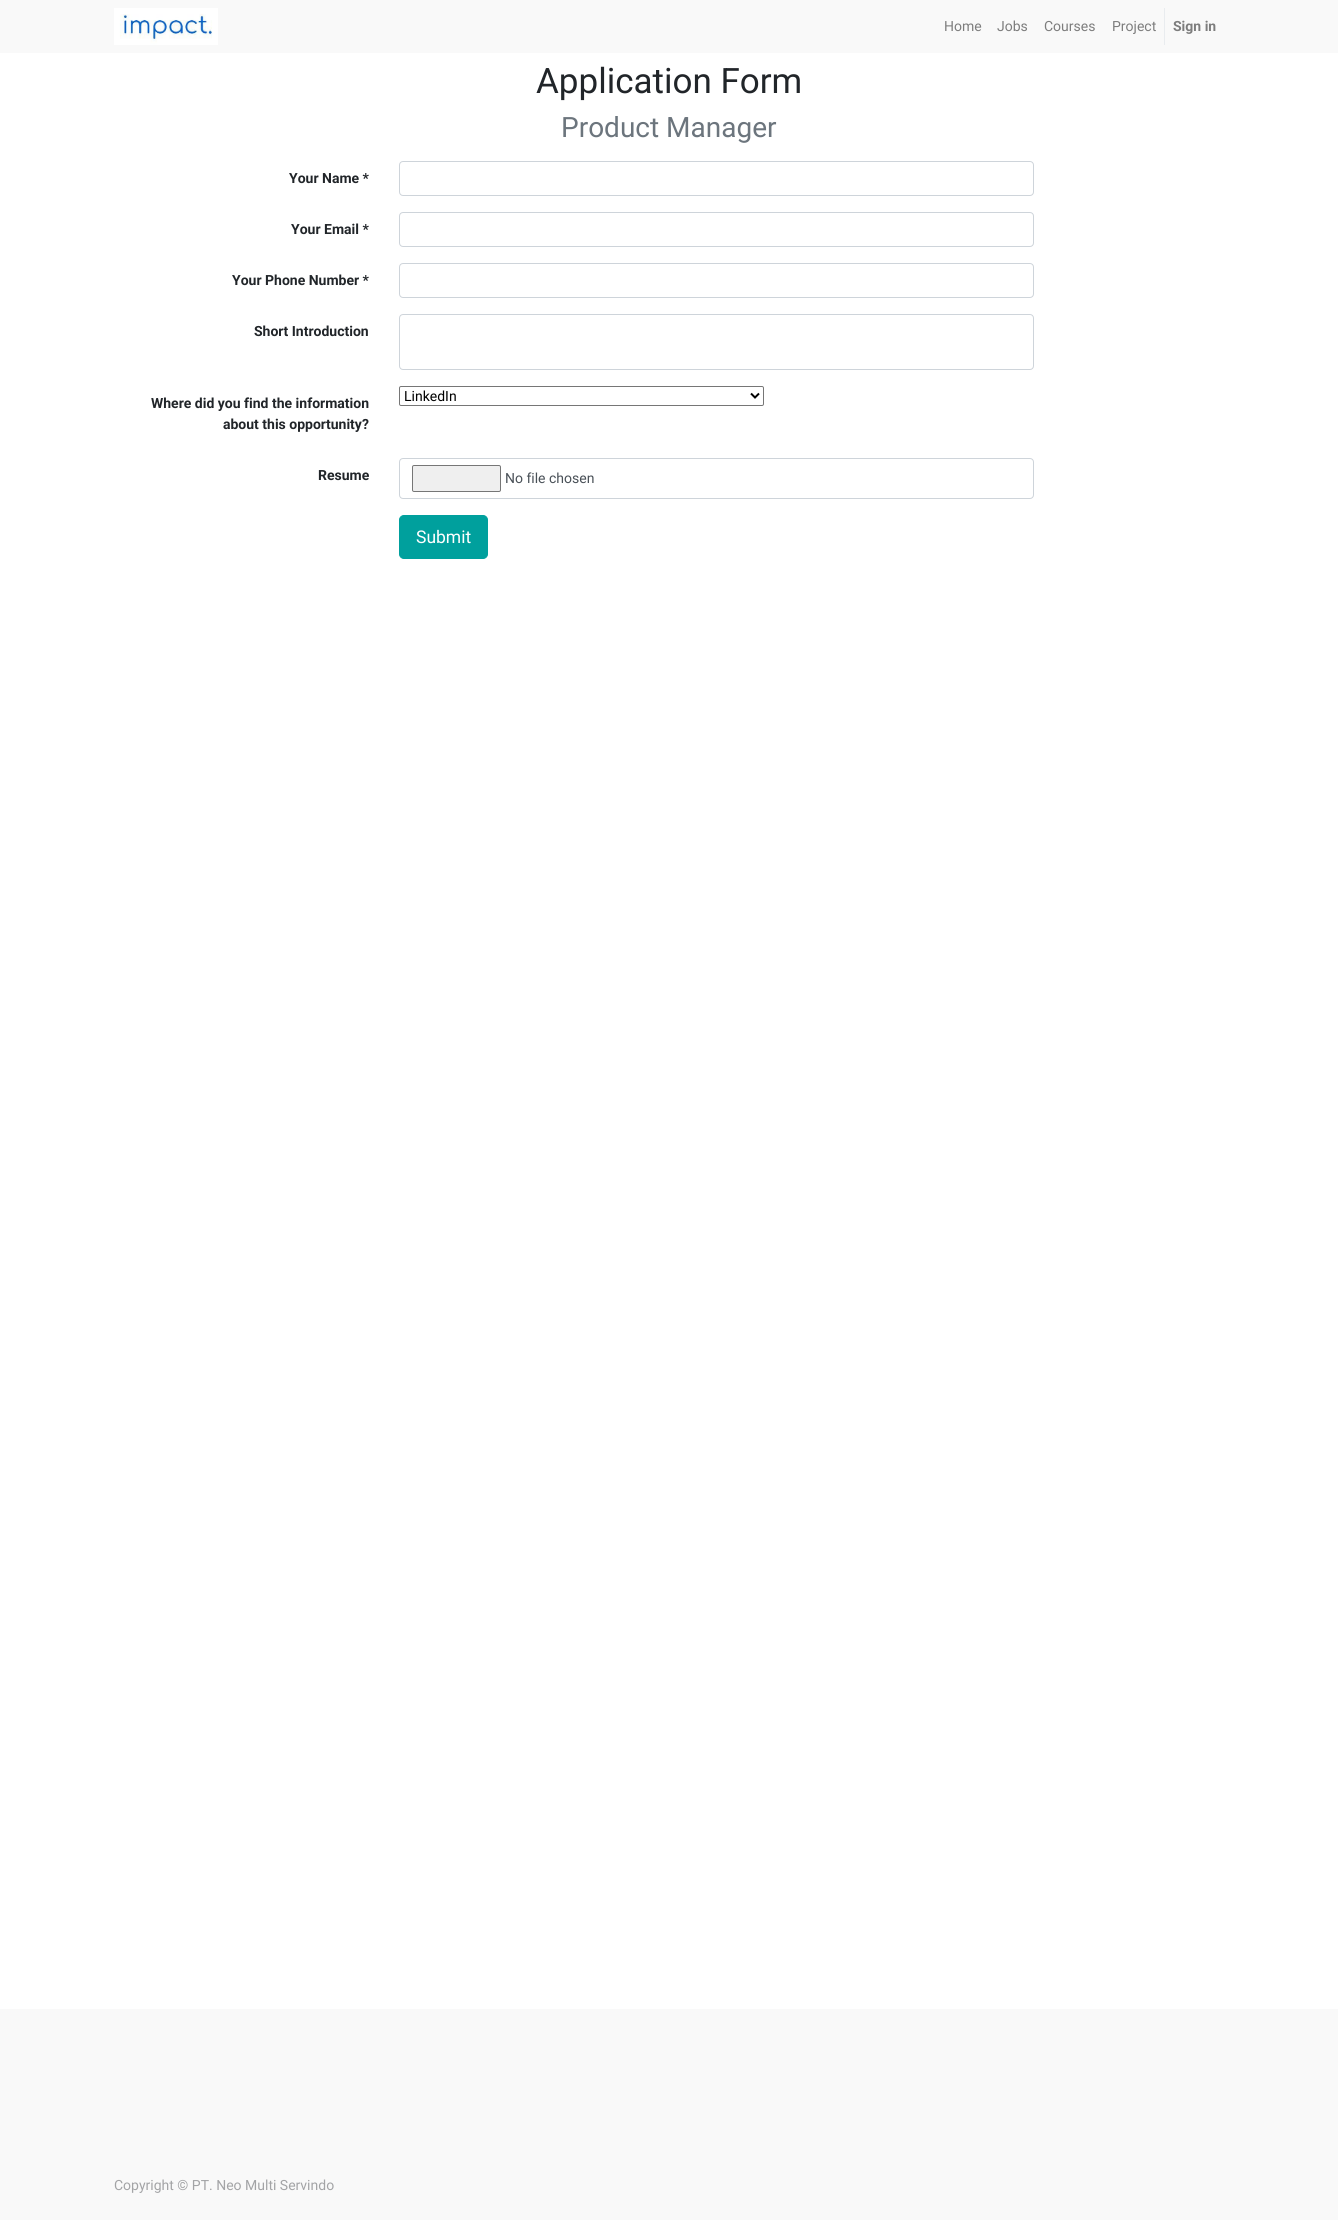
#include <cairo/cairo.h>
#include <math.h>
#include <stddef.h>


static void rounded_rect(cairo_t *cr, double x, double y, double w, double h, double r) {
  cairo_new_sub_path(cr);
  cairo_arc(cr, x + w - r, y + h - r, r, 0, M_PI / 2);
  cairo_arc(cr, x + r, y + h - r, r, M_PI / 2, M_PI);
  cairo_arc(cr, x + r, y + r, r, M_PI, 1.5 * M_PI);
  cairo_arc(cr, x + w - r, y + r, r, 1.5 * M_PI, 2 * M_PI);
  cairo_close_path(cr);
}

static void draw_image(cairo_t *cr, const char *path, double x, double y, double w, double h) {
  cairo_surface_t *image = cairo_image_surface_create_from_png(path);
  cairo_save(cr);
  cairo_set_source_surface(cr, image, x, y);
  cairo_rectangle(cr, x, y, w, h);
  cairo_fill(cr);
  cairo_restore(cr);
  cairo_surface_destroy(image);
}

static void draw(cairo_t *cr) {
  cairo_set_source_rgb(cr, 1, 1, 1);
  cairo_paint(cr);
  cairo_set_source_rgb(cr, 249 / 255.0, 249 / 255.0, 249 / 255.0);
  cairo_rectangle(cr, 0, 0, 1338, 53);
  cairo_fill(cr);
  draw_image(cr, "images/1.png", 114, 8, 104, 37);
  cairo_set_source_rgb(cr, 233 / 255.0, 236 / 255.0, 239 / 255.0);
  cairo_rectangle(cr, 1164, 8, 1, 37);
  cairo_fill(cr);
  rounded_rect(cr, 399.5, 161.5, 634, 34, 3.5);
  cairo_set_source_rgb(cr, 206 / 255.0, 212 / 255.0, 218 / 255.0);
  cairo_set_line_width(cr, 1);
  cairo_stroke(cr);
  rounded_rect(cr, 399.5, 212.5, 634, 34, 3.5);
  cairo_stroke(cr);
  rounded_rect(cr, 399.5, 263.5, 634, 34, 3.5);
  cairo_stroke(cr);
  rounded_rect(cr, 399.5, 314.5, 634, 55, 3.5);
  cairo_stroke(cr);
  rounded_rect(cr, 399.5, 386.5, 364, 19, 1.5);
  cairo_set_source_rgb(cr, 118 / 255.0, 118 / 255.0, 118 / 255.0);
  cairo_stroke(cr);
  cairo_new_path(cr);
  cairo_move_to(cr, 751, 393.5);
  cairo_line_to(cr, 755, 397.5);
  cairo_line_to(cr, 759, 393.5);
  cairo_set_source_rgb(cr, 0, 0, 0);
  cairo_set_line_width(cr, 2);
  cairo_stroke(cr);
  rounded_rect(cr, 399.5, 458.5, 634, 40, 3.5);
  cairo_set_source_rgb(cr, 206 / 255.0, 212 / 255.0, 218 / 255.0);
  cairo_set_line_width(cr, 1);
  cairo_stroke(cr);
  cairo_set_source_rgb(cr, 239 / 255.0, 239 / 255.0, 239 / 255.0);
  rounded_rect(cr, 412.5, 465.5, 88, 26, 1.5);
  cairo_fill_preserve(cr);
  cairo_set_source_rgb(cr, 118 / 255.0, 118 / 255.0, 118 / 255.0);
  cairo_stroke(cr);
  cairo_set_source_rgb(cr, 0, 160 / 255.0, 157 / 255.0);
  rounded_rect(cr, 399.5, 515.5, 88, 43, 4.5);
  cairo_fill_preserve(cr);
  cairo_stroke(cr);
  cairo_set_source_rgb(cr, 249 / 255.0, 249 / 255.0, 249 / 255.0);
  cairo_rectangle(cr, 0, 2009, 1338, 211);
  cairo_fill(cr);
  cairo_select_font_face(cr, "Roboto", CAIRO_FONT_SLANT_NORMAL, CAIRO_FONT_WEIGHT_NORMAL);
  cairo_set_font_size(cr, 14);
  cairo_set_source_rgb(cr, 125 / 255.0, 125 / 255.0, 125 / 255.0);
  cairo_move_to(cr, 944, 31);
  cairo_show_text(cr, "Home");
  cairo_move_to(cr, 997, 31);
  cairo_show_text(cr, "Jobs");
  cairo_move_to(cr, 1044, 31);
  cairo_show_text(cr, "Courses");
  cairo_move_to(cr, 1112, 31);
  cairo_show_text(cr, "Project");
  cairo_select_font_face(cr, "Roboto", CAIRO_FONT_SLANT_NORMAL, CAIRO_FONT_WEIGHT_BOLD);
  cairo_move_to(cr, 1173, 31);
  cairo_show_text(cr, "Sign in");
  cairo_select_font_face(cr, "Roboto", CAIRO_FONT_SLANT_NORMAL, CAIRO_FONT_WEIGHT_NORMAL);
  cairo_set_font_size(cr, 35);
  cairo_set_source_rgb(cr, 33 / 255.0, 37 / 255.0, 41 / 255.0);
  cairo_move_to(cr, 536, 93);
  cairo_show_text(cr, "Application Form");
  cairo_set_font_size(cr, 28);
  cairo_set_source_rgb(cr, 108 / 255.0, 117 / 255.0, 125 / 255.0);
  cairo_move_to(cr, 561, 137);
  cairo_show_text(cr, "Product Manager");
  cairo_select_font_face(cr, "Roboto", CAIRO_FONT_SLANT_NORMAL, CAIRO_FONT_WEIGHT_BOLD);
  cairo_set_font_size(cr, 14);
  cairo_set_source_rgb(cr, 33 / 255.0, 37 / 255.0, 41 / 255.0);
  cairo_move_to(cr, 289, 183);
  cairo_show_text(cr, "Your Name *");
  cairo_move_to(cr, 291, 234);
  cairo_show_text(cr, "Your Email *");
  cairo_move_to(cr, 232, 285);
  cairo_show_text(cr, "Your Phone Number *");
  cairo_move_to(cr, 254, 336);
  cairo_show_text(cr, "Short Introduction");
  cairo_move_to(cr, 151, 408);
  cairo_show_text(cr, "Where did you find the information");
  cairo_move_to(cr, 223, 429);
  cairo_show_text(cr, "about this opportunity?");
  cairo_select_font_face(cr, "Roboto", CAIRO_FONT_SLANT_NORMAL, CAIRO_FONT_WEIGHT_NORMAL);
  cairo_set_source_rgb(cr, 0, 0, 0);
  cairo_move_to(cr, 404, 401);
  cairo_show_text(cr, "LinkedIn");
  cairo_select_font_face(cr, "Roboto", CAIRO_FONT_SLANT_NORMAL, CAIRO_FONT_WEIGHT_BOLD);
  cairo_set_source_rgb(cr, 33 / 255.0, 37 / 255.0, 41 / 255.0);
  cairo_move_to(cr, 318, 480);
  cairo_show_text(cr, "Resume");
  cairo_select_font_face(cr, "Roboto", CAIRO_FONT_SLANT_NORMAL, CAIRO_FONT_WEIGHT_NORMAL);
  cairo_set_source_rgb(cr, 73 / 255.0, 80 / 255.0, 87 / 255.0);
  cairo_move_to(cr, 505, 483);
  cairo_show_text(cr, "No file chosen");
  cairo_set_font_size(cr, 17.5);
  cairo_set_source_rgb(cr, 1, 1, 1);
  cairo_move_to(cr, 416, 543);
  cairo_show_text(cr, "Submit");
  cairo_set_font_size(cr, 14);
  cairo_set_source_rgb(cr, 163 / 255.0, 164 / 255.0, 166 / 255.0);
  cairo_move_to(cr, 114, 2190);
  cairo_show_text(cr, "Copyright © PT. Neo Multi Servindo");
}

int main(void) {
  cairo_surface_t *surface = cairo_image_surface_create(CAIRO_FORMAT_RGB24, 1338, 2220);
  cairo_t *cr = cairo_create(surface);
  cairo_font_options_t *options = cairo_font_options_create();
  cairo_font_options_set_hint_metrics(options, CAIRO_HINT_METRICS_OFF);
  cairo_font_options_set_hint_style(options, CAIRO_HINT_STYLE_NONE);
  cairo_set_font_options(cr, options);
  cairo_set_miter_limit(cr, 4);
  draw(cr);
  cairo_surface_write_to_png(surface, "out.png");
  cairo_font_options_destroy(options);
  cairo_destroy(cr);
  cairo_surface_destroy(surface);
  return 0;
}
